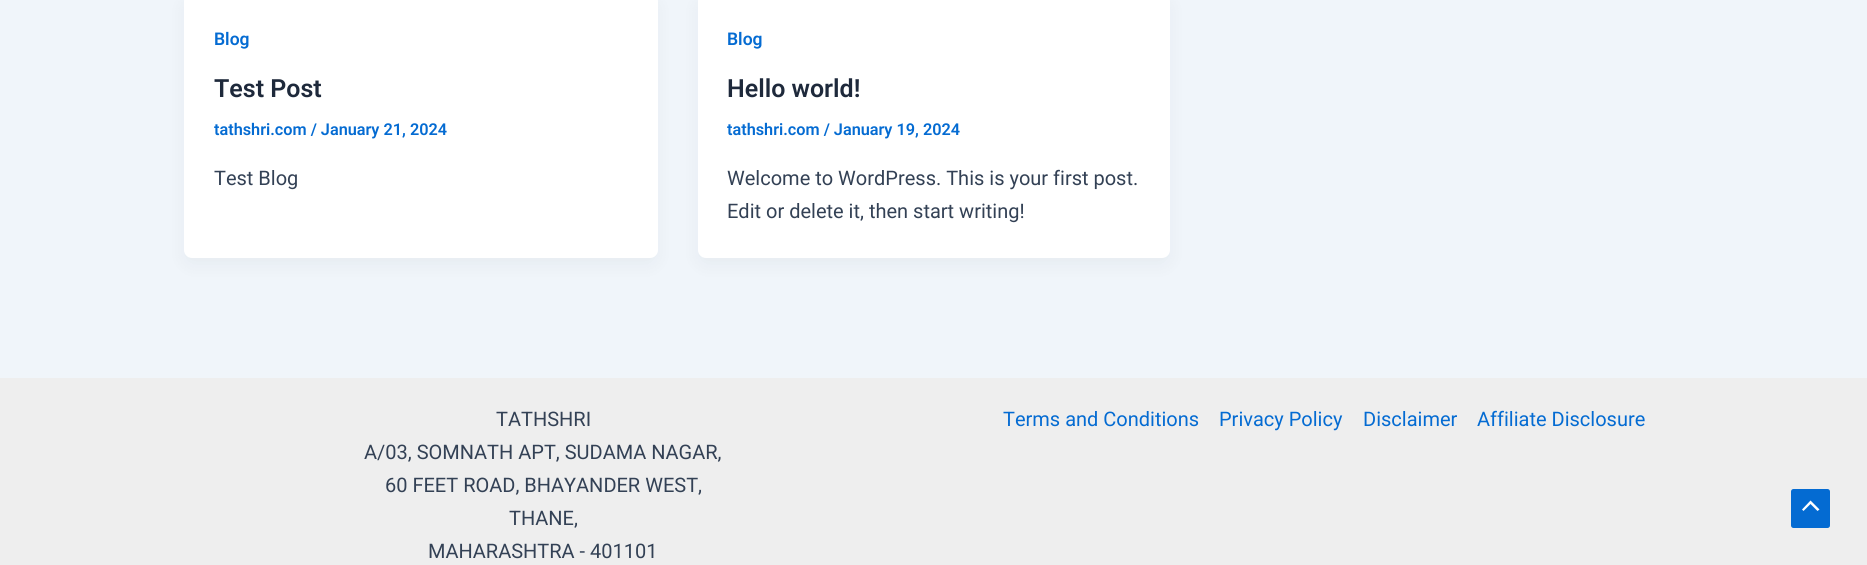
#include <cairo/cairo.h>
#include <math.h>
#include <stddef.h>


static void rounded_rect(cairo_t *cr, double x, double y, double w, double h, double r) {
  cairo_new_sub_path(cr);
  cairo_arc(cr, x + w - r, y + h - r, r, 0, M_PI / 2);
  cairo_arc(cr, x + r, y + h - r, r, M_PI / 2, M_PI);
  cairo_arc(cr, x + r, y + r, r, M_PI, 1.5 * M_PI);
  cairo_arc(cr, x + w - r, y + r, r, 1.5 * M_PI, 2 * M_PI);
  cairo_close_path(cr);
}

static void draw_shadow(cairo_t *cr, double x, double y, double w, double h, double r, double blur, double alpha) {
  cairo_push_group_with_content(cr, CAIRO_CONTENT_ALPHA);
  cairo_set_operator(cr, CAIRO_OPERATOR_SOURCE);
  for (int i = 15; i >= -15 && fmin(w, h) + blur * i / 3 > 0; i -= 2) {
    double e = blur * i / 6;
    cairo_set_source_rgba(cr, 0, 0, 0, alpha * erfc((i - 1) / 8.5) / 2);
    rounded_rect(cr, x - e, y - e, w + 2 * e, h + 2 * e, fmax(0, fmin(r + e + blur * .6, fmin(w, h) / 2 + e)));
    cairo_fill(cr);
  }
  cairo_pattern_t *soft = cairo_pop_group(cr);
  cairo_mask(cr, soft);
  cairo_pattern_destroy(soft);
}

static void draw(cairo_t *cr) {
  cairo_set_source_rgb(cr, 240 / 255.0, 245 / 255.0, 250 / 255.0);
  cairo_paint(cr);
  cairo_set_source_rgb(cr, 16 / 255.0, 24 / 255.0, 40 / 255.0);
  draw_shadow(cr, 186, 3, 469, 260, 5, 9.5, 0.05);
  cairo_set_source_rgb(cr, 1, 1, 1);
  rounded_rect(cr, 184, -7, 474, 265, 8);
  cairo_fill(cr);
  cairo_set_source_rgb(cr, 16 / 255.0, 24 / 255.0, 40 / 255.0);
  draw_shadow(cr, 700, 3, 468, 260, 5, 9.5, 0.05);
  cairo_set_source_rgb(cr, 1, 1, 1);
  rounded_rect(cr, 698, -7, 472, 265, 8);
  cairo_fill(cr);
  cairo_set_source_rgb(cr, 238 / 255.0, 238 / 255.0, 238 / 255.0);
  cairo_rectangle(cr, 0, 378, 1867, 187);
  cairo_fill(cr);
  cairo_set_source_rgb(cr, 4 / 255.0, 107 / 255.0, 210 / 255.0);
  rounded_rect(cr, 1791, 489, 39, 39, 2.5);
  cairo_fill(cr);
  cairo_set_source_rgb(cr, 1, 1, 1);
  cairo_new_path(cr);
  cairo_move_to(cr, 1819.5, 509.5);
  cairo_line_to(cr, 1810.5, 500.5);
  cairo_line_to(cr, 1802, 509.5);
  cairo_line_to(cr, 1803.5, 511);
  cairo_line_to(cr, 1810.5, 504);
  cairo_line_to(cr, 1817.5, 511);
  cairo_close_path(cr);
  cairo_fill(cr);
  cairo_select_font_face(cr, "Roboto SemiBold", CAIRO_FONT_SLANT_NORMAL, CAIRO_FONT_WEIGHT_NORMAL);
  cairo_set_font_size(cr, 17.5);
  cairo_set_source_rgb(cr, 4 / 255.0, 107 / 255.0, 210 / 255.0);
  cairo_move_to(cr, 214, 45);
  cairo_show_text(cr, "Blog");
  cairo_set_font_size(cr, 25);
  cairo_set_source_rgb(cr, 30 / 255.0, 41 / 255.0, 59 / 255.0);
  cairo_move_to(cr, 214, 97);
  cairo_show_text(cr, "Test Post");
  cairo_set_font_size(cr, 16.25);
  cairo_set_source_rgb(cr, 4 / 255.0, 107 / 255.0, 210 / 255.0);
  cairo_move_to(cr, 214, 135);
  cairo_show_text(cr, "tathshri.com / January 21, 2024");
  cairo_select_font_face(cr, "Roboto", CAIRO_FONT_SLANT_NORMAL, CAIRO_FONT_WEIGHT_NORMAL);
  cairo_set_font_size(cr, 20);
  cairo_set_source_rgb(cr, 51 / 255.0, 65 / 255.0, 85 / 255.0);
  cairo_move_to(cr, 214, 185);
  cairo_show_text(cr, "Test Blog");
  cairo_select_font_face(cr, "Roboto SemiBold", CAIRO_FONT_SLANT_NORMAL, CAIRO_FONT_WEIGHT_NORMAL);
  cairo_set_font_size(cr, 17.5);
  cairo_set_source_rgb(cr, 4 / 255.0, 107 / 255.0, 210 / 255.0);
  cairo_move_to(cr, 727, 45);
  cairo_show_text(cr, "Blog");
  cairo_set_font_size(cr, 25);
  cairo_set_source_rgb(cr, 30 / 255.0, 41 / 255.0, 59 / 255.0);
  cairo_move_to(cr, 727, 97);
  cairo_show_text(cr, "Hello world!");
  cairo_set_font_size(cr, 16.25);
  cairo_set_source_rgb(cr, 4 / 255.0, 107 / 255.0, 210 / 255.0);
  cairo_move_to(cr, 727, 135);
  cairo_show_text(cr, "tathshri.com / January 19, 2024");
  cairo_select_font_face(cr, "Roboto", CAIRO_FONT_SLANT_NORMAL, CAIRO_FONT_WEIGHT_NORMAL);
  cairo_set_font_size(cr, 20);
  cairo_set_source_rgb(cr, 51 / 255.0, 65 / 255.0, 85 / 255.0);
  cairo_move_to(cr, 727, 185);
  cairo_show_text(cr, "Welcome to WordPress. This is your first post.");
  cairo_move_to(cr, 727, 218);
  cairo_show_text(cr, "Edit or delete it, then start writing!");
  cairo_move_to(cr, 496, 426);
  cairo_show_text(cr, "TATHSHRI");
  cairo_move_to(cr, 364, 459);
  cairo_show_text(cr, "A/03, SOMNATH APT, SUDAMA NAGAR,");
  cairo_move_to(cr, 385, 492);
  cairo_show_text(cr, "60 FEET ROAD, BHAYANDER WEST,");
  cairo_move_to(cr, 509, 525);
  cairo_show_text(cr, "THANE,");
  cairo_move_to(cr, 428, 558);
  cairo_show_text(cr, "MAHARASHTRA - 401101");
  cairo_set_source_rgb(cr, 4 / 255.0, 107 / 255.0, 210 / 255.0);
  cairo_move_to(cr, 1003, 426);
  cairo_show_text(cr, "Terms and Conditions");
  cairo_move_to(cr, 1219, 426);
  cairo_show_text(cr, "Privacy Policy");
  cairo_move_to(cr, 1363, 426);
  cairo_show_text(cr, "Disclaimer");
  cairo_move_to(cr, 1477, 426);
  cairo_show_text(cr, "Affiliate Disclosure");
}

int main(void) {
  cairo_surface_t *surface = cairo_image_surface_create(CAIRO_FORMAT_RGB24, 1867, 565);
  cairo_t *cr = cairo_create(surface);
  cairo_font_options_t *options = cairo_font_options_create();
  cairo_font_options_set_hint_metrics(options, CAIRO_HINT_METRICS_OFF);
  cairo_font_options_set_hint_style(options, CAIRO_HINT_STYLE_NONE);
  cairo_set_font_options(cr, options);
  cairo_set_miter_limit(cr, 4);
  draw(cr);
  cairo_surface_write_to_png(surface, "out.png");
  cairo_font_options_destroy(options);
  cairo_destroy(cr);
  cairo_surface_destroy(surface);
  return 0;
}
